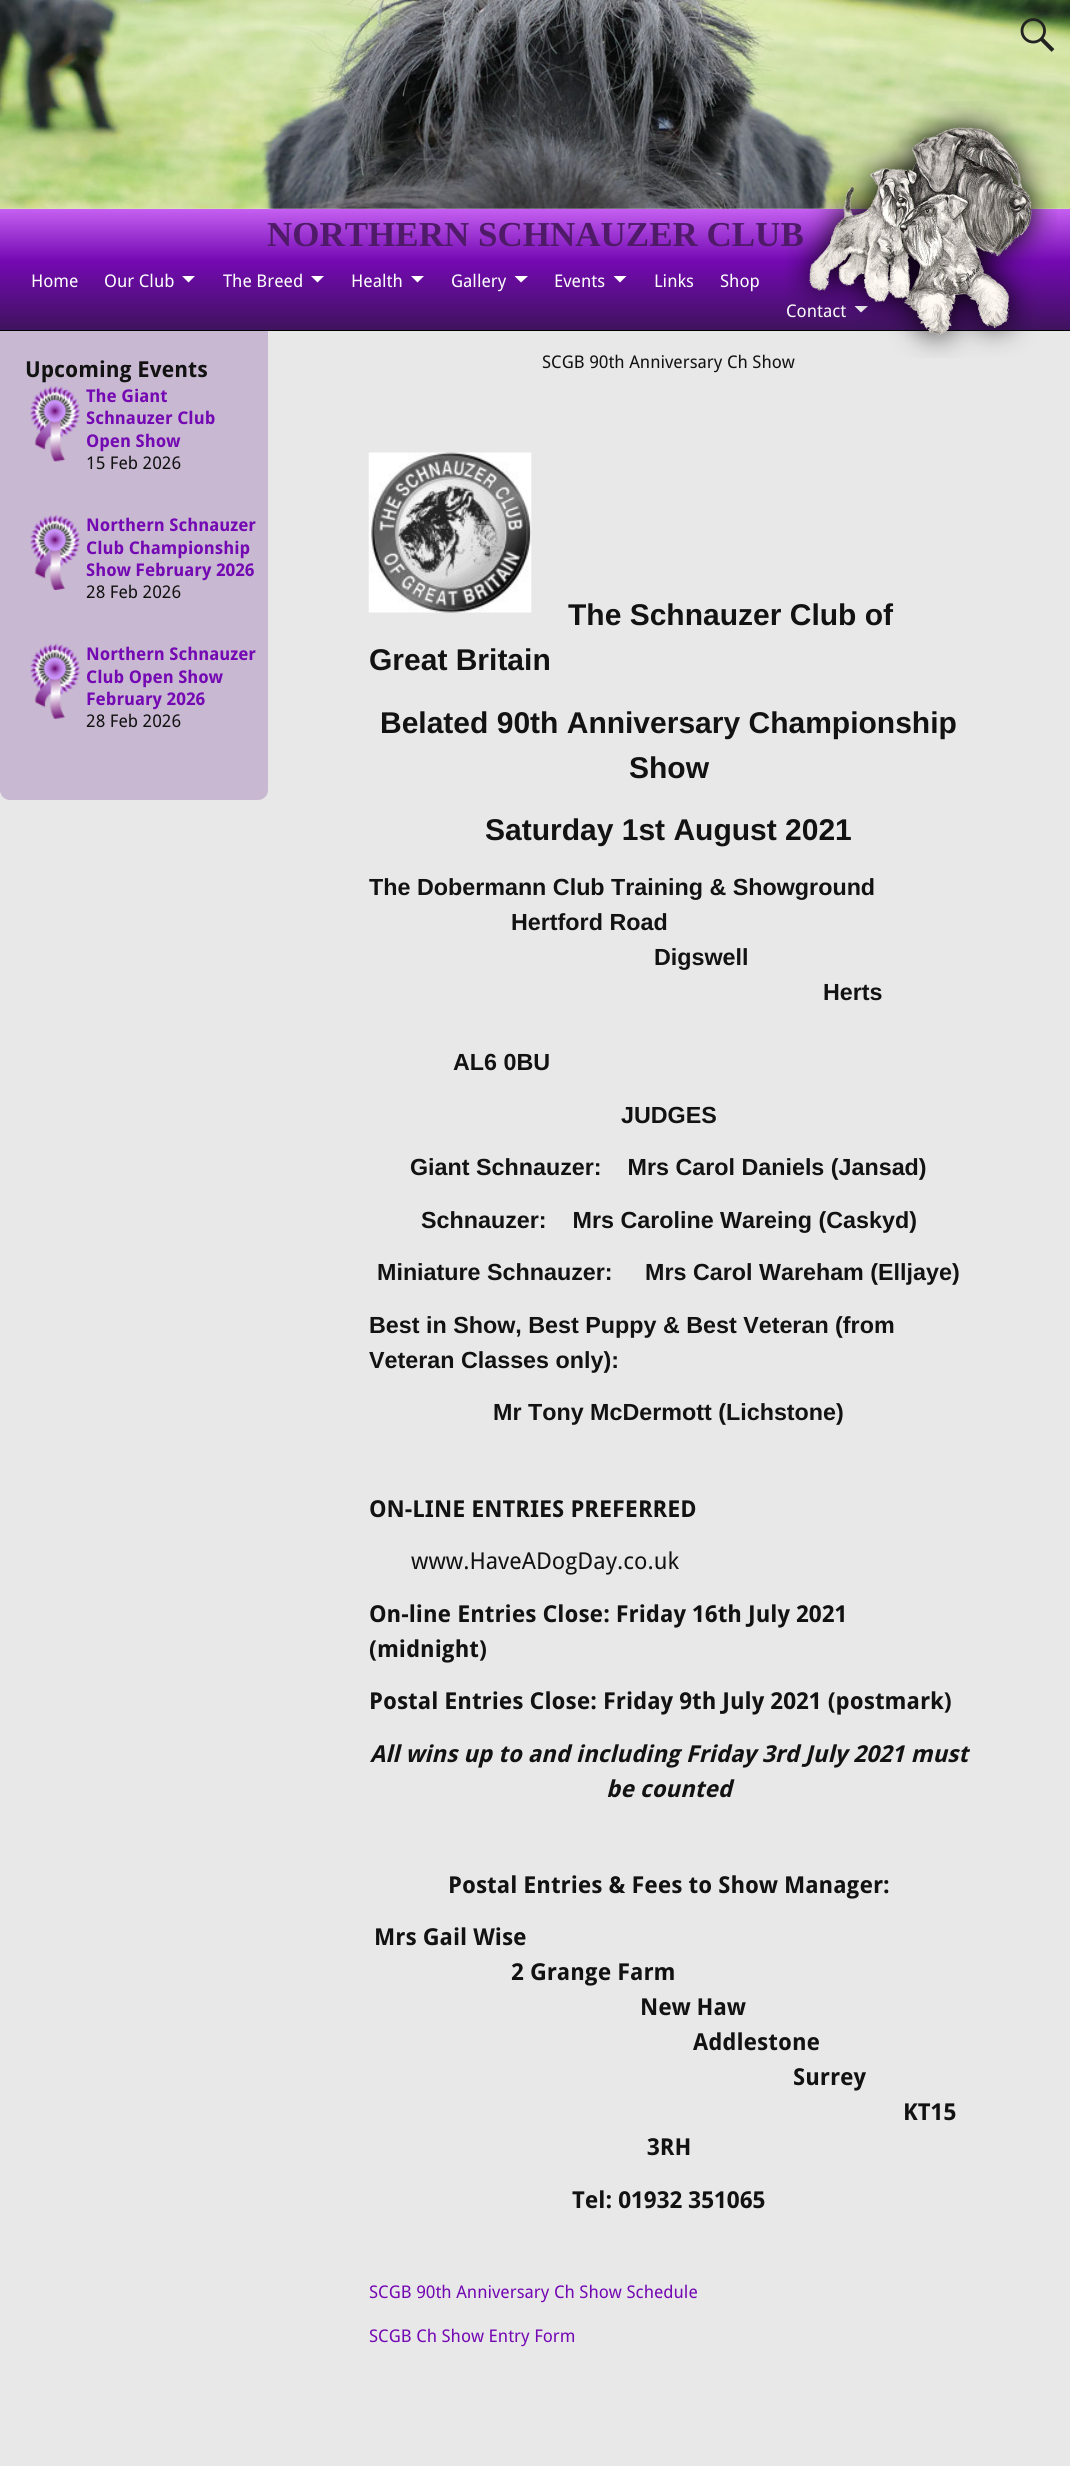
#include <cairo/cairo.h>
#include <math.h>
#include <stddef.h>


static void draw_image(cairo_t *cr, const char *path, double x, double y, double w, double h) {
  cairo_surface_t *image = cairo_image_surface_create_from_png(path);
  cairo_save(cr);
  cairo_set_source_surface(cr, image, x, y);
  cairo_rectangle(cr, x, y, w, h);
  cairo_fill(cr);
  cairo_restore(cr);
  cairo_surface_destroy(image);
}

static void draw(cairo_t *cr) {
  cairo_pattern_t *gradient;
  cairo_set_source_rgb(cr, 232 / 255.0, 232 / 255.0, 232 / 255.0);
  cairo_paint(cr);
  draw_image(cr, "images/1.png", 0, 0, 1070, 209);
  draw_image(cr, "images/2.png", 1020, 18, 35, 34);
  gradient = cairo_pattern_create_linear(535, 209, 535, 261);
  cairo_pattern_add_color_stop_rgba(gradient, 0, 197 / 255.0, 96 / 255.0, 241 / 255.0, 1);
  cairo_pattern_add_color_stop_rgba(gradient, 1, 116 / 255.0, 9 / 255.0, 179 / 255.0, 1);
  cairo_set_source(cr, gradient);
  cairo_pattern_destroy(gradient);
  cairo_rectangle(cr, 0, 209, 1070, 52);
  cairo_fill(cr);
  gradient = cairo_pattern_create_linear(535, 261, 535, 330);
  cairo_pattern_add_color_stop_rgba(gradient, 0, 116 / 255.0, 9 / 255.0, 179 / 255.0, 1);
  cairo_pattern_add_color_stop_rgba(gradient, 1, 63 / 255.0, 19 / 255.0, 94 / 255.0, 1);
  cairo_set_source(cr, gradient);
  cairo_pattern_destroy(gradient);
  cairo_rectangle(cr, 0, 261, 1070, 69);
  cairo_fill(cr);
  cairo_set_source_rgb(cr, 0, 0, 0);
  cairo_rectangle(cr, 0, 330, 1070, 1);
  cairo_fill(cr);
  cairo_set_source_rgb(cr, 1, 1, 1);
  cairo_new_path(cr);
  cairo_move_to(cr, 182, 276);
  cairo_line_to(cr, 195, 276);
  cairo_line_to(cr, 188.5, 282.5);
  cairo_close_path(cr);
  cairo_fill(cr);
  cairo_new_path(cr);
  cairo_move_to(cr, 311, 276);
  cairo_line_to(cr, 324, 276);
  cairo_line_to(cr, 317.5, 282.5);
  cairo_close_path(cr);
  cairo_fill(cr);
  cairo_new_path(cr);
  cairo_move_to(cr, 411, 276);
  cairo_line_to(cr, 424, 276);
  cairo_line_to(cr, 417.5, 282.5);
  cairo_close_path(cr);
  cairo_fill(cr);
  cairo_new_path(cr);
  cairo_move_to(cr, 514.5, 276);
  cairo_line_to(cr, 528, 276);
  cairo_line_to(cr, 521, 282.5);
  cairo_close_path(cr);
  cairo_fill(cr);
  cairo_new_path(cr);
  cairo_move_to(cr, 613.5, 276);
  cairo_line_to(cr, 626.5, 276);
  cairo_line_to(cr, 620, 282.5);
  cairo_close_path(cr);
  cairo_fill(cr);
  cairo_new_path(cr);
  cairo_move_to(cr, 854.5, 306);
  cairo_line_to(cr, 868, 306);
  cairo_line_to(cr, 861, 312.5);
  cairo_close_path(cr);
  cairo_fill(cr);
  cairo_set_source_rgb(cr, 200 / 255.0, 184 / 255.0, 209 / 255.0);
  cairo_new_path(cr);
  cairo_move_to(cr, 0, 331);
  cairo_line_to(cr, 268, 331);
  cairo_line_to(cr, 268, 790);
  cairo_curve_to(cr, 268, 795.5, 263.5, 800, 258, 800);
  cairo_line_to(cr, 10, 800);
  cairo_curve_to(cr, 4.5, 800, 0, 795.5, 0, 790);
  cairo_close_path(cr);
  cairo_fill(cr);
  draw_image(cr, "images/4.png", 30, 386, 50, 76);
  draw_image(cr, "images/5.png", 30, 515, 50, 75);
  draw_image(cr, "images/6.png", 30, 643, 50, 76);
  draw_image(cr, "images/7.png", 368, 452, 164, 161);
  cairo_select_font_face(cr, "Liberation Serif", CAIRO_FONT_SLANT_NORMAL, CAIRO_FONT_WEIGHT_BOLD);
  cairo_set_font_size(cr, 35);
  cairo_set_source_rgb(cr, 79 / 255.0, 27 / 255.0, 105 / 255.0);
  cairo_move_to(cr, 267, 246);
  cairo_show_text(cr, "NORTHERN SCHNAUZER CLUB");
  cairo_select_font_face(cr, "Droid Sans", CAIRO_FONT_SLANT_NORMAL, CAIRO_FONT_WEIGHT_NORMAL);
  cairo_set_font_size(cr, 17.5);
  cairo_set_source_rgb(cr, 1, 1, 1);
  cairo_move_to(cr, 31, 287);
  cairo_show_text(cr, "Home");
  cairo_move_to(cr, 104, 287);
  cairo_show_text(cr, "Our Club");
  cairo_move_to(cr, 223, 287);
  cairo_show_text(cr, "The Breed");
  cairo_move_to(cr, 351, 287);
  cairo_show_text(cr, "Health");
  cairo_move_to(cr, 451, 287);
  cairo_show_text(cr, "Gallery");
  cairo_move_to(cr, 554, 287);
  cairo_show_text(cr, "Events");
  cairo_move_to(cr, 654, 287);
  cairo_show_text(cr, "Links");
  cairo_move_to(cr, 720, 287);
  cairo_show_text(cr, "Shop");
  cairo_move_to(cr, 786, 317);
  cairo_show_text(cr, "Contact");
  cairo_select_font_face(cr, "Droid Sans", CAIRO_FONT_SLANT_NORMAL, CAIRO_FONT_WEIGHT_BOLD);
  cairo_set_font_size(cr, 22);
  cairo_set_source_rgb(cr, 18 / 255.0, 18 / 255.0, 18 / 255.0);
  cairo_move_to(cr, 25, 377);
  cairo_show_text(cr, "Upcoming Events");
  cairo_set_font_size(cr, 17.5);
  cairo_set_source_rgb(cr, 116 / 255.0, 9 / 255.0, 179 / 255.0);
  cairo_move_to(cr, 86, 402);
  cairo_show_text(cr, "The Giant");
  cairo_move_to(cr, 86, 424);
  cairo_show_text(cr, "Schnauzer Club");
  cairo_move_to(cr, 86, 447);
  cairo_show_text(cr, "Open Show");
  cairo_select_font_face(cr, "Droid Sans", CAIRO_FONT_SLANT_NORMAL, CAIRO_FONT_WEIGHT_NORMAL);
  cairo_set_source_rgb(cr, 18 / 255.0, 18 / 255.0, 18 / 255.0);
  cairo_move_to(cr, 86, 469);
  cairo_show_text(cr, "15 Feb 2026");
  cairo_select_font_face(cr, "Droid Sans", CAIRO_FONT_SLANT_NORMAL, CAIRO_FONT_WEIGHT_BOLD);
  cairo_set_source_rgb(cr, 116 / 255.0, 9 / 255.0, 179 / 255.0);
  cairo_move_to(cr, 86, 531);
  cairo_show_text(cr, "Northern Schnauzer");
  cairo_move_to(cr, 86, 554);
  cairo_show_text(cr, "Club Championship");
  cairo_move_to(cr, 86, 576);
  cairo_show_text(cr, "Show February 2026");
  cairo_select_font_face(cr, "Droid Sans", CAIRO_FONT_SLANT_NORMAL, CAIRO_FONT_WEIGHT_NORMAL);
  cairo_set_source_rgb(cr, 18 / 255.0, 18 / 255.0, 18 / 255.0);
  cairo_move_to(cr, 86, 598);
  cairo_show_text(cr, "28 Feb 2026");
  cairo_select_font_face(cr, "Droid Sans", CAIRO_FONT_SLANT_NORMAL, CAIRO_FONT_WEIGHT_BOLD);
  cairo_set_source_rgb(cr, 116 / 255.0, 9 / 255.0, 179 / 255.0);
  cairo_move_to(cr, 86, 660);
  cairo_show_text(cr, "Northern Schnauzer");
  cairo_move_to(cr, 86, 683);
  cairo_show_text(cr, "Club Open Show");
  cairo_move_to(cr, 86, 705);
  cairo_show_text(cr, "February 2026");
  cairo_select_font_face(cr, "Droid Sans", CAIRO_FONT_SLANT_NORMAL, CAIRO_FONT_WEIGHT_NORMAL);
  cairo_set_source_rgb(cr, 18 / 255.0, 18 / 255.0, 18 / 255.0);
  cairo_move_to(cr, 86, 727);
  cairo_show_text(cr, "28 Feb 2026");
  cairo_move_to(cr, 542, 368);
  cairo_show_text(cr, "SCGB 90th Anniversary Ch Show");
  draw_image(cr, "images/3.png", 785, 101, 272, 257);
  cairo_select_font_face(cr, "Liberation Sans", CAIRO_FONT_SLANT_NORMAL, CAIRO_FONT_WEIGHT_BOLD);
  cairo_set_font_size(cr, 30);
  cairo_move_to(cr, 568, 625);
  cairo_show_text(cr, "The Schnauzer Club of");
  cairo_move_to(cr, 369, 670);
  cairo_show_text(cr, "Great Britain");
  cairo_move_to(cr, 380, 733);
  cairo_show_text(cr, "Belated 90th Anniversary Championship");
  cairo_move_to(cr, 629, 778);
  cairo_show_text(cr, "Show");
  cairo_move_to(cr, 485, 840);
  cairo_show_text(cr, "Saturday 1st August 2021");
  cairo_set_font_size(cr, 23.3);
  cairo_move_to(cr, 369, 895);
  cairo_show_text(cr, "The Dobermann Club Training & Showground");
  cairo_move_to(cr, 511, 930);
  cairo_show_text(cr, "Hertford Road");
  cairo_move_to(cr, 654, 965);
  cairo_show_text(cr, "Digswell");
  cairo_move_to(cr, 823, 1000);
  cairo_show_text(cr, "Herts");
  cairo_move_to(cr, 453, 1070);
  cairo_show_text(cr, "AL6 0BU");
  cairo_move_to(cr, 621, 1123);
  cairo_show_text(cr, "JUDGES");
  cairo_move_to(cr, 410, 1175);
  cairo_show_text(cr, "Giant Schnauzer:    Mrs Carol Daniels (Jansad)");
  cairo_move_to(cr, 421, 1228);
  cairo_show_text(cr, "Schnauzer:    Mrs Caroline Wareing (Caskyd)");
  cairo_move_to(cr, 377, 1280);
  cairo_show_text(cr, "Miniature Schnauzer:     Mrs Carol Wareham (Elljaye)");
  cairo_move_to(cr, 369, 1333);
  cairo_show_text(cr, "Best in Show, Best Puppy & Best Veteran (from");
  cairo_move_to(cr, 369, 1368);
  cairo_show_text(cr, "Veteran Classes only):");
  cairo_move_to(cr, 493, 1420);
  cairo_show_text(cr, "Mr Tony McDermott (Lichstone)");
  cairo_select_font_face(cr, "Droid Sans", CAIRO_FONT_SLANT_NORMAL, CAIRO_FONT_WEIGHT_BOLD);
  cairo_move_to(cr, 369, 1517);
  cairo_show_text(cr, "ON-LINE ENTRIES PREFERRED");
  cairo_select_font_face(cr, "Droid Sans", CAIRO_FONT_SLANT_NORMAL, CAIRO_FONT_WEIGHT_NORMAL);
  cairo_move_to(cr, 411, 1569);
  cairo_show_text(cr, "www.HaveADogDay.co.uk");
  cairo_select_font_face(cr, "Droid Sans", CAIRO_FONT_SLANT_NORMAL, CAIRO_FONT_WEIGHT_BOLD);
  cairo_move_to(cr, 369, 1622);
  cairo_show_text(cr, "On-line Entries Close: Friday 16th July 2021");
  cairo_move_to(cr, 369, 1657);
  cairo_show_text(cr, "(midnight)");
  cairo_move_to(cr, 369, 1709);
  cairo_show_text(cr, "Postal Entries Close: Friday 9th July 2021 (postmark)");
  cairo_select_font_face(cr, "Droid Sans", CAIRO_FONT_SLANT_ITALIC, CAIRO_FONT_WEIGHT_BOLD);
  cairo_move_to(cr, 370, 1762);
  cairo_show_text(cr, "All wins up to and including Friday 3rd July 2021 must");
  cairo_move_to(cr, 606, 1797);
  cairo_show_text(cr, "be counted");
  cairo_select_font_face(cr, "Droid Sans", CAIRO_FONT_SLANT_NORMAL, CAIRO_FONT_WEIGHT_BOLD);
  cairo_move_to(cr, 448, 1893);
  cairo_show_text(cr, "Postal Entries & Fees to Show Manager:");
  cairo_move_to(cr, 374, 1945);
  cairo_show_text(cr, "Mrs Gail Wise");
  cairo_move_to(cr, 511, 1980);
  cairo_show_text(cr, "2 Grange Farm");
  cairo_move_to(cr, 640, 2015);
  cairo_show_text(cr, "New Haw");
  cairo_move_to(cr, 693, 2050);
  cairo_show_text(cr, "Addlestone");
  cairo_move_to(cr, 793, 2085);
  cairo_show_text(cr, "Surrey");
  cairo_move_to(cr, 903, 2120);
  cairo_show_text(cr, "KT15");
  cairo_move_to(cr, 647, 2155);
  cairo_show_text(cr, "3RH");
  cairo_move_to(cr, 572, 2208);
  cairo_show_text(cr, "Tel: 01932 351065");
  cairo_select_font_face(cr, "Droid Sans", CAIRO_FONT_SLANT_NORMAL, CAIRO_FONT_WEIGHT_NORMAL);
  cairo_set_font_size(cr, 17.5);
  cairo_set_source_rgb(cr, 116 / 255.0, 9 / 255.0, 179 / 255.0);
  cairo_move_to(cr, 369, 2298);
  cairo_show_text(cr, "SCGB 90th Anniversary Ch Show Schedule");
  cairo_move_to(cr, 369, 2342);
  cairo_show_text(cr, "SCGB Ch Show Entry Form");
}

int main(void) {
  cairo_surface_t *surface = cairo_image_surface_create(CAIRO_FORMAT_RGB24, 1070, 2466);
  cairo_t *cr = cairo_create(surface);
  cairo_font_options_t *options = cairo_font_options_create();
  cairo_font_options_set_hint_metrics(options, CAIRO_HINT_METRICS_OFF);
  cairo_font_options_set_hint_style(options, CAIRO_HINT_STYLE_NONE);
  cairo_set_font_options(cr, options);
  cairo_set_miter_limit(cr, 4);
  draw(cr);
  cairo_surface_write_to_png(surface, "out.png");
  cairo_font_options_destroy(options);
  cairo_destroy(cr);
  cairo_surface_destroy(surface);
  return 0;
}
